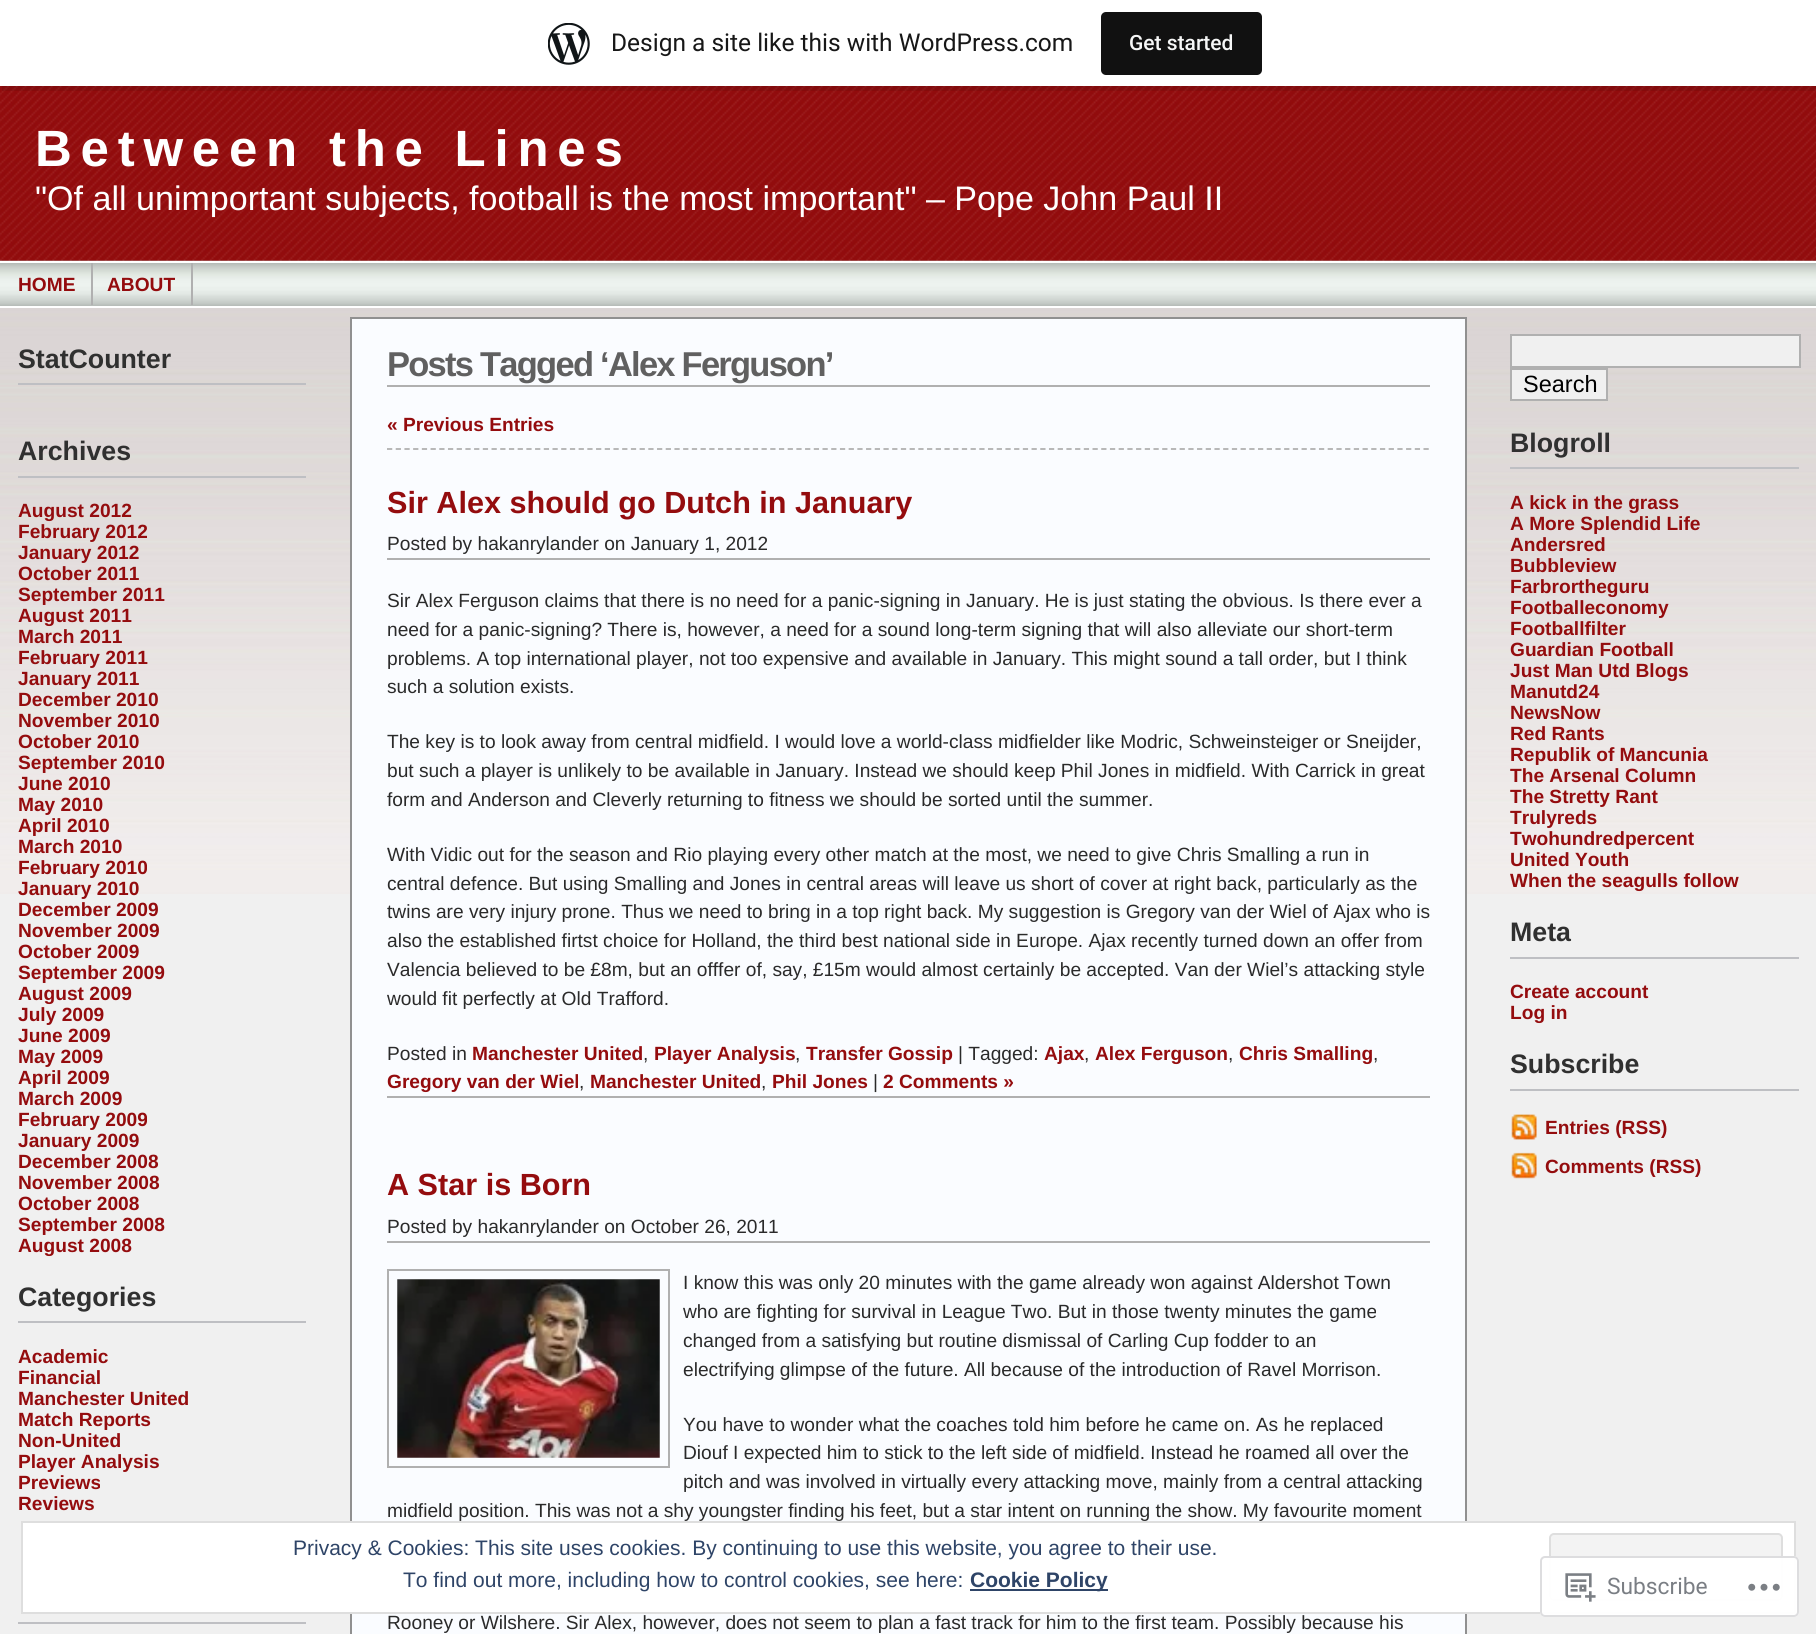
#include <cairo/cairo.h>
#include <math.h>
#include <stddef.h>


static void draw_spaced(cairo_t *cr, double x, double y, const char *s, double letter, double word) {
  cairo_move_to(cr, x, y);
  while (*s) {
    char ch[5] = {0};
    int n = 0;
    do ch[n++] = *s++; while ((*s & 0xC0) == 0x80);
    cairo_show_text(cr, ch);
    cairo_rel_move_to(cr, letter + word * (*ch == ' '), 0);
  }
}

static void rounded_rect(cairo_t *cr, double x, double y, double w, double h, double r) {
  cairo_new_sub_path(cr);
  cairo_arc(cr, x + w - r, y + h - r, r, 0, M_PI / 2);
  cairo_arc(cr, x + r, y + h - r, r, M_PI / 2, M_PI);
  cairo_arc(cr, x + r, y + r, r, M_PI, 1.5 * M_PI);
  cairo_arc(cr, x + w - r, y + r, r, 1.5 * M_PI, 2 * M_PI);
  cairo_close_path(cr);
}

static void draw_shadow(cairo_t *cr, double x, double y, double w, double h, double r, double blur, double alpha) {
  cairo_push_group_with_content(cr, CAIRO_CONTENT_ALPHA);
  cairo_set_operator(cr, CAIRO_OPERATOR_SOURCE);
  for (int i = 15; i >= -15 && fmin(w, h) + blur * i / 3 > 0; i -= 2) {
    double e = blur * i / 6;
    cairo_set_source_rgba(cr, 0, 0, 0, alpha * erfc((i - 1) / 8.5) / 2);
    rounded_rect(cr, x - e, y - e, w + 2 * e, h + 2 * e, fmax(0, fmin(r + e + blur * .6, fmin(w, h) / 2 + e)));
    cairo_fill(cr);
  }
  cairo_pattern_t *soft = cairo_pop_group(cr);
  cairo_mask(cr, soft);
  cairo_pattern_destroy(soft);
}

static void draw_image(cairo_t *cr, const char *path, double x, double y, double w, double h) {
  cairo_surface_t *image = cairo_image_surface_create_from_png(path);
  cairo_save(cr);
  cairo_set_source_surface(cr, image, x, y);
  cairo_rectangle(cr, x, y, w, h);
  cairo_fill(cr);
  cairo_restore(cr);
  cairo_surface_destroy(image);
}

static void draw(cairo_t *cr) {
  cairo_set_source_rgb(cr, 240 / 255.0, 240 / 255.0, 240 / 255.0);
  cairo_paint(cr);
  draw_image(cr, "images/2.png", 0, 86, 1816, 808);
  cairo_set_source_rgb(cr, 0, 0, 0);
  draw_shadow(cr, 0, 2, 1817, 86, 0, 2, 0.05);
  cairo_set_source_rgba(cr, 0, 0, 0, 0.08);
  cairo_new_path(cr);
  cairo_move_to(cr, 2, 86);
  cairo_line_to(cr, 2, 91);
  cairo_line_to(cr, 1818, 91);
  cairo_line_to(cr, 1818, 5);
  cairo_line_to(cr, 1816, 5);
  cairo_line_to(cr, 1816, 86);
  cairo_close_path(cr);
  cairo_fill(cr);
  cairo_set_source_rgb(cr, 1, 1, 1);
  cairo_rectangle(cr, 0, 0, 1816, 86);
  cairo_fill(cr);
  draw_image(cr, "images/1.png", 548, 23, 42, 42);
  cairo_set_source_rgb(cr, 17 / 255.0, 17 / 255.0, 17 / 255.0);
  rounded_rect(cr, 1101, 12, 161, 63, 5);
  cairo_fill(cr);
  draw_image(cr, "images/3.png", 0, 263, 1816, 43);
  cairo_set_source_rgb(cr, 1, 1, 1);
  cairo_rectangle(cr, 0, 261, 1816, 2);
  cairo_fill(cr);
  cairo_rectangle(cr, 0, 306, 1816, 2);
  cairo_fill(cr);
  cairo_set_source_rgb(cr, 176 / 255.0, 176 / 255.0, 176 / 255.0);
  cairo_rectangle(cr, 91, 263, 2, 42);
  cairo_fill(cr);
  cairo_rectangle(cr, 191, 263, 2, 42);
  cairo_fill(cr);
  cairo_set_source_rgb(cr, 190 / 255.0, 191 / 255.0, 195 / 255.0);
  cairo_rectangle(cr, 18, 383, 288, 2);
  cairo_fill(cr);
  cairo_rectangle(cr, 18, 476, 288, 2);
  cairo_fill(cr);
  cairo_rectangle(cr, 18, 1321, 288, 2);
  cairo_fill(cr);
  cairo_rectangle(cr, 18, 1622, 288, 2);
  cairo_fill(cr);
  cairo_set_source_rgb(cr, 250 / 255.0, 252 / 255.0, 1);
  cairo_rectangle(cr, 351, 318, 1115, 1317);
  cairo_fill_preserve(cr);
  cairo_set_source_rgb(cr, 144 / 255.0, 144 / 255.0, 144 / 255.0);
  cairo_stroke(cr);
  cairo_set_source_rgb(cr, 176 / 255.0, 176 / 255.0, 176 / 255.0);
  cairo_rectangle(cr, 387, 385, 1043, 2);
  cairo_fill(cr);
  cairo_new_path(cr);
  cairo_move_to(cr, 387, 449);
  cairo_line_to(cr, 1430, 449);
  cairo_set_line_width(cr, 1.8);
  cairo_set_dash(cr, (double[]){5.25, 3.46}, 2, 0);
  cairo_stroke(cr);
  cairo_rectangle(cr, 387, 558, 1043, 2);
  cairo_fill(cr);
  cairo_rectangle(cr, 387, 1096, 1043, 2);
  cairo_fill(cr);
  cairo_rectangle(cr, 387, 1241, 1043, 2);
  cairo_fill(cr);
  cairo_rectangle(cr, 388, 1270, 281, 197);
  cairo_set_line_width(cr, 2);
  cairo_set_dash(cr, NULL, 0, 0);
  cairo_stroke(cr);
  draw_image(cr, "images/4.png", 397, 1279, 263, 179);
  cairo_set_source_rgb(cr, 240 / 255.0, 240 / 255.0, 240 / 255.0);
  cairo_rectangle(cr, 1511, 335, 289, 32);
  cairo_fill_preserve(cr);
  cairo_set_source_rgb(cr, 176 / 255.0, 176 / 255.0, 176 / 255.0);
  cairo_stroke(cr);
  cairo_set_source_rgb(cr, 240 / 255.0, 240 / 255.0, 240 / 255.0);
  cairo_rectangle(cr, 1511, 369, 96, 31);
  cairo_fill_preserve(cr);
  cairo_set_source_rgb(cr, 176 / 255.0, 176 / 255.0, 176 / 255.0);
  cairo_stroke(cr);
  cairo_set_source_rgb(cr, 190 / 255.0, 191 / 255.0, 195 / 255.0);
  cairo_rectangle(cr, 1510, 467, 289, 2);
  cairo_fill(cr);
  cairo_rectangle(cr, 1510, 957, 289, 2);
  cairo_fill(cr);
  cairo_rectangle(cr, 1510, 1089, 289, 2);
  cairo_fill(cr);
  draw_image(cr, "images/5.png", 1511, 1114, 26, 26);
  draw_image(cr, "images/6.png", 1511, 1152, 26, 27);
  cairo_set_source_rgb(cr, 1, 1, 1);
  cairo_rectangle(cr, 22, 1522, 1773, 91);
  cairo_fill_preserve(cr);
  cairo_set_source_rgb(cr, 222 / 255.0, 222 / 255.0, 222 / 255.0);
  cairo_stroke(cr);
  cairo_set_source_rgb(cr, 243 / 255.0, 243 / 255.0, 243 / 255.0);
  rounded_rect(cr, 1550, 1534, 232, 66, 4);
  cairo_fill_preserve(cr);
  cairo_set_source_rgb(cr, 222 / 255.0, 222 / 255.0, 222 / 255.0);
  cairo_stroke(cr);
  cairo_set_source_rgb(cr, 46 / 255.0, 68 / 255.0, 103 / 255.0);
  cairo_rectangle(cr, 970, 1589, 138, 2);
  cairo_fill(cr);
  cairo_set_source_rgba(cr, 1, 1, 1, 0.98);
  rounded_rect(cr, 1540, 1556, 259, 61, 5);
  cairo_fill(cr);
  rounded_rect(cr, 1541, 1557, 257, 59, 4);
  cairo_set_source_rgba(cr, 220 / 255.0, 220 / 255.0, 222 / 255.0, 0.98);
  cairo_stroke(cr);
  draw_image(cr, "images/7.png", 1565, 1573, 31, 29);
  draw_image(cr, "images/8.png", 1748, 1583, 32, 8);
  cairo_select_font_face(cr, "Roboto", CAIRO_FONT_SLANT_NORMAL, CAIRO_FONT_WEIGHT_NORMAL);
  cairo_set_font_size(cr, 24.5);
  cairo_set_source_rgb(cr, 23 / 255.0, 23 / 255.0, 23 / 255.0);
  cairo_move_to(cr, 611, 51);
  cairo_show_text(cr, "Design a site like this with WordPress.com");
  cairo_select_font_face(cr, "Roboto Medium", CAIRO_FONT_SLANT_NORMAL, CAIRO_FONT_WEIGHT_NORMAL);
  cairo_set_font_size(cr, 21);
  cairo_set_source_rgb(cr, 246 / 255.0, 247 / 255.0, 247 / 255.0);
  cairo_move_to(cr, 1129, 50);
  cairo_show_text(cr, "Get started");
  cairo_select_font_face(cr, "Liberation Sans", CAIRO_FONT_SLANT_NORMAL, CAIRO_FONT_WEIGHT_BOLD);
  cairo_set_font_size(cr, 51);
  cairo_set_source_rgb(cr, 1, 1, 1);
  draw_spaced(cr, 35, 166, "Between the Lines", 8.75, 0);
  cairo_select_font_face(cr, "Liberation Sans", CAIRO_FONT_SLANT_NORMAL, CAIRO_FONT_WEIGHT_NORMAL);
  cairo_set_font_size(cr, 34.05);
  cairo_move_to(cr, 35, 210);
  cairo_show_text(cr, "\"Of all unimportant subjects, football is the most important\" – Pope John Paul II");
  cairo_select_font_face(cr, "Liberation Sans", CAIRO_FONT_SLANT_NORMAL, CAIRO_FONT_WEIGHT_BOLD);
  cairo_set_font_size(cr, 19.15);
  cairo_set_source_rgb(cr, 148 / 255.0, 12 / 255.0, 14 / 255.0);
  cairo_move_to(cr, 18, 291);
  cairo_show_text(cr, "HOME");
  cairo_move_to(cr, 107, 291);
  cairo_show_text(cr, "ABOUT");
  cairo_set_font_size(cr, 26.75);
  cairo_set_source_rgb(cr, 48 / 255.0, 48 / 255.0, 48 / 255.0);
  cairo_move_to(cr, 18, 368);
  cairo_show_text(cr, "StatCounter");
  cairo_move_to(cr, 18, 460);
  cairo_show_text(cr, "Archives");
  cairo_set_font_size(cr, 19.15);
  cairo_set_source_rgb(cr, 148 / 255.0, 12 / 255.0, 14 / 255.0);
  cairo_move_to(cr, 18, 517);
  cairo_show_text(cr, "August 2012");
  cairo_move_to(cr, 18, 538);
  cairo_show_text(cr, "February 2012");
  cairo_move_to(cr, 18, 559);
  cairo_show_text(cr, "January 2012");
  cairo_move_to(cr, 18, 580);
  cairo_show_text(cr, "October 2011");
  cairo_move_to(cr, 18, 601);
  cairo_show_text(cr, "September 2011");
  cairo_move_to(cr, 18, 622);
  cairo_show_text(cr, "August 2011");
  cairo_move_to(cr, 18, 643);
  cairo_show_text(cr, "March 2011");
  cairo_move_to(cr, 18, 664);
  cairo_show_text(cr, "February 2011");
  cairo_move_to(cr, 18, 685);
  cairo_show_text(cr, "January 2011");
  cairo_move_to(cr, 18, 706);
  cairo_show_text(cr, "December 2010");
  cairo_move_to(cr, 18, 727);
  cairo_show_text(cr, "November 2010");
  cairo_move_to(cr, 18, 748);
  cairo_show_text(cr, "October 2010");
  cairo_move_to(cr, 18, 769);
  cairo_show_text(cr, "September 2010");
  cairo_move_to(cr, 18, 790);
  cairo_show_text(cr, "June 2010");
  cairo_move_to(cr, 18, 811);
  cairo_show_text(cr, "May 2010");
  cairo_move_to(cr, 18, 832);
  cairo_show_text(cr, "April 2010");
  cairo_move_to(cr, 18, 853);
  cairo_show_text(cr, "March 2010");
  cairo_move_to(cr, 18, 874);
  cairo_show_text(cr, "February 2010");
  cairo_move_to(cr, 18, 895);
  cairo_show_text(cr, "January 2010");
  cairo_move_to(cr, 18, 916);
  cairo_show_text(cr, "December 2009");
  cairo_move_to(cr, 18, 937);
  cairo_show_text(cr, "November 2009");
  cairo_move_to(cr, 18, 958);
  cairo_show_text(cr, "October 2009");
  cairo_move_to(cr, 18, 979);
  cairo_show_text(cr, "September 2009");
  cairo_move_to(cr, 18, 1000);
  cairo_show_text(cr, "August 2009");
  cairo_move_to(cr, 18, 1021);
  cairo_show_text(cr, "July 2009");
  cairo_move_to(cr, 18, 1042);
  cairo_show_text(cr, "June 2009");
  cairo_move_to(cr, 18, 1063);
  cairo_show_text(cr, "May 2009");
  cairo_move_to(cr, 18, 1084);
  cairo_show_text(cr, "April 2009");
  cairo_move_to(cr, 18, 1105);
  cairo_show_text(cr, "March 2009");
  cairo_move_to(cr, 18, 1126);
  cairo_show_text(cr, "February 2009");
  cairo_move_to(cr, 18, 1147);
  cairo_show_text(cr, "January 2009");
  cairo_move_to(cr, 18, 1168);
  cairo_show_text(cr, "December 2008");
  cairo_move_to(cr, 18, 1189);
  cairo_show_text(cr, "November 2008");
  cairo_move_to(cr, 18, 1210);
  cairo_show_text(cr, "October 2008");
  cairo_move_to(cr, 18, 1231);
  cairo_show_text(cr, "September 2008");
  cairo_move_to(cr, 18, 1252);
  cairo_show_text(cr, "August 2008");
  cairo_set_font_size(cr, 26.75);
  cairo_set_source_rgb(cr, 48 / 255.0, 48 / 255.0, 48 / 255.0);
  cairo_move_to(cr, 18, 1306);
  cairo_show_text(cr, "Categories");
  cairo_set_font_size(cr, 19.15);
  cairo_set_source_rgb(cr, 148 / 255.0, 12 / 255.0, 14 / 255.0);
  cairo_move_to(cr, 18, 1363);
  cairo_show_text(cr, "Academic");
  cairo_move_to(cr, 18, 1384);
  cairo_show_text(cr, "Financial");
  cairo_move_to(cr, 18, 1405);
  cairo_show_text(cr, "Manchester United");
  cairo_move_to(cr, 18, 1426);
  cairo_show_text(cr, "Match Reports");
  cairo_move_to(cr, 18, 1447);
  cairo_show_text(cr, "Non-United");
  cairo_move_to(cr, 18, 1468);
  cairo_show_text(cr, "Player Analysis");
  cairo_move_to(cr, 18, 1489);
  cairo_show_text(cr, "Previews");
  cairo_move_to(cr, 18, 1510);
  cairo_show_text(cr, "Reviews");
  cairo_set_font_size(cr, 34.5);
  cairo_set_source_rgb(cr, 96 / 255.0, 96 / 255.0, 96 / 255.0);
  draw_spaced(cr, 387, 376, "Posts Tagged ‘Alex Ferguson’", -1.75, 0);
  cairo_set_font_size(cr, 19.15);
  cairo_set_source_rgb(cr, 148 / 255.0, 12 / 255.0, 14 / 255.0);
  cairo_move_to(cr, 387, 431);
  cairo_show_text(cr, "« Previous Entries");
  cairo_set_font_size(cr, 30.6);
  cairo_move_to(cr, 387, 513);
  cairo_show_text(cr, "Sir Alex should go Dutch in January");
  cairo_select_font_face(cr, "Liberation Sans", CAIRO_FONT_SLANT_NORMAL, CAIRO_FONT_WEIGHT_NORMAL);
  cairo_set_font_size(cr, 19.15);
  cairo_set_source_rgb(cr, 42 / 255.0, 42 / 255.0, 42 / 255.0);
  cairo_move_to(cr, 387, 550);
  cairo_show_text(cr, "Posted by hakanrylander on January 1, 2012");
  cairo_move_to(cr, 387, 607);
  cairo_show_text(cr, "Sir Alex Ferguson claims that there is no need for a panic-signing in January. He is just stating the obvious. Is there ever a");
  cairo_move_to(cr, 387, 636);
  cairo_show_text(cr, "need for a panic-signing? There is, however, a need for a sound long-term signing that will also alleviate our short-term");
  cairo_move_to(cr, 387, 665);
  cairo_show_text(cr, "problems. A top international player, not too expensive and available in January. This might sound a tall order, but I think");
  cairo_move_to(cr, 387, 693);
  cairo_show_text(cr, "such a solution exists.");
  cairo_move_to(cr, 387, 748);
  cairo_show_text(cr, "The key is to look away from central midfield. I would love a world-class midfielder like Modric, Schweinsteiger or Sneijder,");
  cairo_move_to(cr, 387, 777);
  cairo_show_text(cr, "but such a player is unlikely to be available in January. Instead we should keep Phil Jones in midfield. With Carrick in great");
  cairo_move_to(cr, 387, 806);
  cairo_show_text(cr, "form and Anderson and Cleverly returning to fitness we should be sorted until the summer.");
  cairo_move_to(cr, 387, 861);
  cairo_show_text(cr, "With Vidic out for the season and Rio playing every other match at the most, we need to give Chris Smalling a run in");
  cairo_move_to(cr, 387, 890);
  cairo_show_text(cr, "central defence. But using Smalling and Jones in central areas will leave us short of cover at right back, particularly as the");
  cairo_move_to(cr, 387, 918);
  cairo_show_text(cr, "twins are very injury prone. Thus we need to bring in a top right back. My suggestion is Gregory van der Wiel of Ajax who is");
  cairo_move_to(cr, 387, 947);
  cairo_show_text(cr, "also the established firtst choice for Holland, the third best national side in Europe. Ajax recently turned down an offer from");
  cairo_move_to(cr, 387, 976);
  cairo_show_text(cr, "Valencia believed to be £8m, but an offfer of, say, £15m would almost certainly be accepted. Van der Wiel’s attacking style");
  cairo_move_to(cr, 387, 1005);
  cairo_show_text(cr, "would fit perfectly at Old Trafford.");
  cairo_move_to(cr, 387, 1060);
  cairo_show_text(cr, "Posted in");
  cairo_select_font_face(cr, "Liberation Sans", CAIRO_FONT_SLANT_NORMAL, CAIRO_FONT_WEIGHT_BOLD);
  cairo_set_source_rgb(cr, 148 / 255.0, 12 / 255.0, 14 / 255.0);
  cairo_move_to(cr, 472, 1060);
  cairo_show_text(cr, "Manchester United");
  cairo_select_font_face(cr, "Liberation Sans", CAIRO_FONT_SLANT_NORMAL, CAIRO_FONT_WEIGHT_NORMAL);
  cairo_set_source_rgb(cr, 42 / 255.0, 42 / 255.0, 42 / 255.0);
  cairo_move_to(cr, 643, 1060);
  cairo_show_text(cr, ",");
  cairo_select_font_face(cr, "Liberation Sans", CAIRO_FONT_SLANT_NORMAL, CAIRO_FONT_WEIGHT_BOLD);
  cairo_set_source_rgb(cr, 148 / 255.0, 12 / 255.0, 14 / 255.0);
  cairo_move_to(cr, 654, 1060);
  cairo_show_text(cr, "Player Analysis");
  cairo_select_font_face(cr, "Liberation Sans", CAIRO_FONT_SLANT_NORMAL, CAIRO_FONT_WEIGHT_NORMAL);
  cairo_set_source_rgb(cr, 42 / 255.0, 42 / 255.0, 42 / 255.0);
  cairo_move_to(cr, 795, 1060);
  cairo_show_text(cr, ",");
  cairo_select_font_face(cr, "Liberation Sans", CAIRO_FONT_SLANT_NORMAL, CAIRO_FONT_WEIGHT_BOLD);
  cairo_set_source_rgb(cr, 148 / 255.0, 12 / 255.0, 14 / 255.0);
  cairo_move_to(cr, 806, 1060);
  cairo_show_text(cr, "Transfer Gossip");
  cairo_select_font_face(cr, "Liberation Sans", CAIRO_FONT_SLANT_NORMAL, CAIRO_FONT_WEIGHT_NORMAL);
  cairo_set_source_rgb(cr, 42 / 255.0, 42 / 255.0, 42 / 255.0);
  cairo_move_to(cr, 958, 1060);
  cairo_show_text(cr, "| Tagged:");
  cairo_select_font_face(cr, "Liberation Sans", CAIRO_FONT_SLANT_NORMAL, CAIRO_FONT_WEIGHT_BOLD);
  cairo_set_source_rgb(cr, 148 / 255.0, 12 / 255.0, 14 / 255.0);
  cairo_move_to(cr, 1044, 1060);
  cairo_show_text(cr, "Ajax");
  cairo_select_font_face(cr, "Liberation Sans", CAIRO_FONT_SLANT_NORMAL, CAIRO_FONT_WEIGHT_NORMAL);
  cairo_set_source_rgb(cr, 42 / 255.0, 42 / 255.0, 42 / 255.0);
  cairo_move_to(cr, 1084, 1060);
  cairo_show_text(cr, ",");
  cairo_select_font_face(cr, "Liberation Sans", CAIRO_FONT_SLANT_NORMAL, CAIRO_FONT_WEIGHT_BOLD);
  cairo_set_source_rgb(cr, 148 / 255.0, 12 / 255.0, 14 / 255.0);
  cairo_move_to(cr, 1095, 1060);
  cairo_show_text(cr, "Alex Ferguson");
  cairo_select_font_face(cr, "Liberation Sans", CAIRO_FONT_SLANT_NORMAL, CAIRO_FONT_WEIGHT_NORMAL);
  cairo_set_source_rgb(cr, 42 / 255.0, 42 / 255.0, 42 / 255.0);
  cairo_move_to(cr, 1228, 1060);
  cairo_show_text(cr, ",");
  cairo_select_font_face(cr, "Liberation Sans", CAIRO_FONT_SLANT_NORMAL, CAIRO_FONT_WEIGHT_BOLD);
  cairo_set_source_rgb(cr, 148 / 255.0, 12 / 255.0, 14 / 255.0);
  cairo_move_to(cr, 1239, 1060);
  cairo_show_text(cr, "Chris Smalling");
  cairo_select_font_face(cr, "Liberation Sans", CAIRO_FONT_SLANT_NORMAL, CAIRO_FONT_WEIGHT_NORMAL);
  cairo_set_source_rgb(cr, 42 / 255.0, 42 / 255.0, 42 / 255.0);
  cairo_move_to(cr, 1373, 1060);
  cairo_show_text(cr, ",");
  cairo_select_font_face(cr, "Liberation Sans", CAIRO_FONT_SLANT_NORMAL, CAIRO_FONT_WEIGHT_BOLD);
  cairo_set_source_rgb(cr, 148 / 255.0, 12 / 255.0, 14 / 255.0);
  cairo_move_to(cr, 387, 1088);
  cairo_show_text(cr, "Gregory van der Wiel");
  cairo_select_font_face(cr, "Liberation Sans", CAIRO_FONT_SLANT_NORMAL, CAIRO_FONT_WEIGHT_NORMAL);
  cairo_set_source_rgb(cr, 42 / 255.0, 42 / 255.0, 42 / 255.0);
  cairo_move_to(cr, 579, 1088);
  cairo_show_text(cr, ",");
  cairo_select_font_face(cr, "Liberation Sans", CAIRO_FONT_SLANT_NORMAL, CAIRO_FONT_WEIGHT_BOLD);
  cairo_set_source_rgb(cr, 148 / 255.0, 12 / 255.0, 14 / 255.0);
  cairo_move_to(cr, 590, 1088);
  cairo_show_text(cr, "Manchester United");
  cairo_select_font_face(cr, "Liberation Sans", CAIRO_FONT_SLANT_NORMAL, CAIRO_FONT_WEIGHT_NORMAL);
  cairo_set_source_rgb(cr, 42 / 255.0, 42 / 255.0, 42 / 255.0);
  cairo_move_to(cr, 761, 1088);
  cairo_show_text(cr, ",");
  cairo_select_font_face(cr, "Liberation Sans", CAIRO_FONT_SLANT_NORMAL, CAIRO_FONT_WEIGHT_BOLD);
  cairo_set_source_rgb(cr, 148 / 255.0, 12 / 255.0, 14 / 255.0);
  cairo_move_to(cr, 772, 1088);
  cairo_show_text(cr, "Phil Jones");
  cairo_select_font_face(cr, "Liberation Sans", CAIRO_FONT_SLANT_NORMAL, CAIRO_FONT_WEIGHT_NORMAL);
  cairo_set_source_rgb(cr, 42 / 255.0, 42 / 255.0, 42 / 255.0);
  cairo_move_to(cr, 873, 1088);
  cairo_show_text(cr, "|");
  cairo_select_font_face(cr, "Liberation Sans", CAIRO_FONT_SLANT_NORMAL, CAIRO_FONT_WEIGHT_BOLD);
  cairo_set_source_rgb(cr, 148 / 255.0, 12 / 255.0, 14 / 255.0);
  cairo_move_to(cr, 883, 1088);
  cairo_show_text(cr, "2 Comments »");
  cairo_set_font_size(cr, 30.6);
  cairo_move_to(cr, 387, 1195);
  cairo_show_text(cr, "A Star is Born");
  cairo_select_font_face(cr, "Liberation Sans", CAIRO_FONT_SLANT_NORMAL, CAIRO_FONT_WEIGHT_NORMAL);
  cairo_set_font_size(cr, 19.15);
  cairo_set_source_rgb(cr, 42 / 255.0, 42 / 255.0, 42 / 255.0);
  cairo_move_to(cr, 387, 1233);
  cairo_show_text(cr, "Posted by hakanrylander on October 26, 2011");
  cairo_move_to(cr, 683, 1289);
  cairo_show_text(cr, "I know this was only 20 minutes with the game already won against Aldershot Town");
  cairo_move_to(cr, 683, 1318);
  cairo_show_text(cr, "who are fighting for survival in League Two. But in those twenty minutes the game");
  cairo_move_to(cr, 683, 1347);
  cairo_show_text(cr, "changed from a satisfying but routine dismissal of Carling Cup fodder to an");
  cairo_move_to(cr, 683, 1376);
  cairo_show_text(cr, "electrifying glimpse of the future. All because of the introduction of Ravel Morrison.");
  cairo_move_to(cr, 683, 1431);
  cairo_show_text(cr, "You have to wonder what the coaches told him before he came on. As he replaced");
  cairo_move_to(cr, 683, 1459);
  cairo_show_text(cr, "Diouf I expected him to stick to the left side of midfield. Instead he roamed all over the");
  cairo_move_to(cr, 683, 1488);
  cairo_show_text(cr, "pitch and was involved in virtually every attacking move, mainly from a central attacking");
  cairo_move_to(cr, 387, 1517);
  cairo_show_text(cr, "midfield position. This was not a shy youngster finding his feet, but a star intent on running the show. My favourite moment");
  cairo_move_to(cr, 387, 1629);
  cairo_show_text(cr, "Rooney or Wilshere. Sir Alex, however, does not seem to plan a fast track for him to the first team. Possibly because his");
  cairo_set_font_size(cr, 23.5);
  cairo_set_source_rgb(cr, 0, 0, 0);
  cairo_move_to(cr, 1523, 392);
  cairo_show_text(cr, "Search");
  cairo_select_font_face(cr, "Liberation Sans", CAIRO_FONT_SLANT_NORMAL, CAIRO_FONT_WEIGHT_BOLD);
  cairo_set_font_size(cr, 26.75);
  cairo_set_source_rgb(cr, 48 / 255.0, 48 / 255.0, 48 / 255.0);
  cairo_move_to(cr, 1510, 452);
  cairo_show_text(cr, "Blogroll");
  cairo_set_font_size(cr, 19.15);
  cairo_set_source_rgb(cr, 148 / 255.0, 12 / 255.0, 14 / 255.0);
  cairo_move_to(cr, 1510, 509);
  cairo_show_text(cr, "A kick in the grass");
  cairo_move_to(cr, 1510, 530);
  cairo_show_text(cr, "A More Splendid Life");
  cairo_move_to(cr, 1510, 551);
  cairo_show_text(cr, "Andersred");
  cairo_move_to(cr, 1510, 572);
  cairo_show_text(cr, "Bubbleview");
  cairo_move_to(cr, 1510, 593);
  cairo_show_text(cr, "Farbrortheguru");
  cairo_move_to(cr, 1510, 614);
  cairo_show_text(cr, "Footballeconomy");
  cairo_move_to(cr, 1510, 635);
  cairo_show_text(cr, "Footballfilter");
  cairo_move_to(cr, 1510, 656);
  cairo_show_text(cr, "Guardian Football");
  cairo_move_to(cr, 1510, 677);
  cairo_show_text(cr, "Just Man Utd Blogs");
  cairo_move_to(cr, 1510, 698);
  cairo_show_text(cr, "Manutd24");
  cairo_move_to(cr, 1510, 719);
  cairo_show_text(cr, "NewsNow");
  cairo_move_to(cr, 1510, 740);
  cairo_show_text(cr, "Red Rants");
  cairo_move_to(cr, 1510, 761);
  cairo_show_text(cr, "Republik of Mancunia");
  cairo_move_to(cr, 1510, 782);
  cairo_show_text(cr, "The Arsenal Column");
  cairo_move_to(cr, 1510, 803);
  cairo_show_text(cr, "The Stretty Rant");
  cairo_move_to(cr, 1510, 824);
  cairo_show_text(cr, "Trulyreds");
  cairo_move_to(cr, 1510, 845);
  cairo_show_text(cr, "Twohundredpercent");
  cairo_move_to(cr, 1510, 866);
  cairo_show_text(cr, "United Youth");
  cairo_move_to(cr, 1510, 887);
  cairo_show_text(cr, "When the seagulls follow");
  cairo_set_font_size(cr, 26.75);
  cairo_set_source_rgb(cr, 48 / 255.0, 48 / 255.0, 48 / 255.0);
  cairo_move_to(cr, 1510, 941);
  cairo_show_text(cr, "Meta");
  cairo_set_font_size(cr, 19.15);
  cairo_set_source_rgb(cr, 148 / 255.0, 12 / 255.0, 14 / 255.0);
  cairo_move_to(cr, 1510, 998);
  cairo_show_text(cr, "Create account");
  cairo_move_to(cr, 1510, 1019);
  cairo_show_text(cr, "Log in");
  cairo_set_font_size(cr, 26.75);
  cairo_set_source_rgb(cr, 48 / 255.0, 48 / 255.0, 48 / 255.0);
  cairo_move_to(cr, 1510, 1073);
  cairo_show_text(cr, "Subscribe");
  cairo_set_font_size(cr, 19.15);
  cairo_set_source_rgb(cr, 148 / 255.0, 12 / 255.0, 14 / 255.0);
  cairo_move_to(cr, 1545, 1134);
  cairo_show_text(cr, "Entries (RSS)");
  cairo_move_to(cr, 1545, 1173);
  cairo_show_text(cr, "Comments (RSS)");
  cairo_select_font_face(cr, "Liberation Sans", CAIRO_FONT_SLANT_NORMAL, CAIRO_FONT_WEIGHT_NORMAL);
  cairo_set_font_size(cr, 21);
  cairo_set_source_rgb(cr, 46 / 255.0, 68 / 255.0, 103 / 255.0);
  cairo_move_to(cr, 293, 1555);
  cairo_show_text(cr, "Privacy & Cookies: This site uses cookies. By continuing to use this website, you agree to their use.");
  cairo_move_to(cr, 403, 1587);
  cairo_show_text(cr, "To find out more, including how to control cookies, see here:");
  cairo_select_font_face(cr, "Liberation Sans", CAIRO_FONT_SLANT_NORMAL, CAIRO_FONT_WEIGHT_BOLD);
  cairo_move_to(cr, 970, 1587);
  cairo_show_text(cr, "Cookie Policy");
  cairo_select_font_face(cr, "Roboto", CAIRO_FONT_SLANT_NORMAL, CAIRO_FONT_WEIGHT_NORMAL);
  cairo_set_font_size(cr, 22.75);
  cairo_set_source_rgb(cr, 122 / 255.0, 126 / 255.0, 132 / 255.0);
  cairo_move_to(cr, 1607, 1594);
  cairo_show_text(cr, "Subscribe");
}

int main(void) {
  cairo_surface_t *surface = cairo_image_surface_create(CAIRO_FORMAT_RGB24, 1816, 1634);
  cairo_t *cr = cairo_create(surface);
  cairo_font_options_t *options = cairo_font_options_create();
  cairo_font_options_set_hint_metrics(options, CAIRO_HINT_METRICS_OFF);
  cairo_font_options_set_hint_style(options, CAIRO_HINT_STYLE_NONE);
  cairo_set_font_options(cr, options);
  cairo_set_miter_limit(cr, 4);
  draw(cr);
  cairo_surface_write_to_png(surface, "out.png");
  cairo_font_options_destroy(options);
  cairo_destroy(cr);
  cairo_surface_destroy(surface);
  return 0;
}
